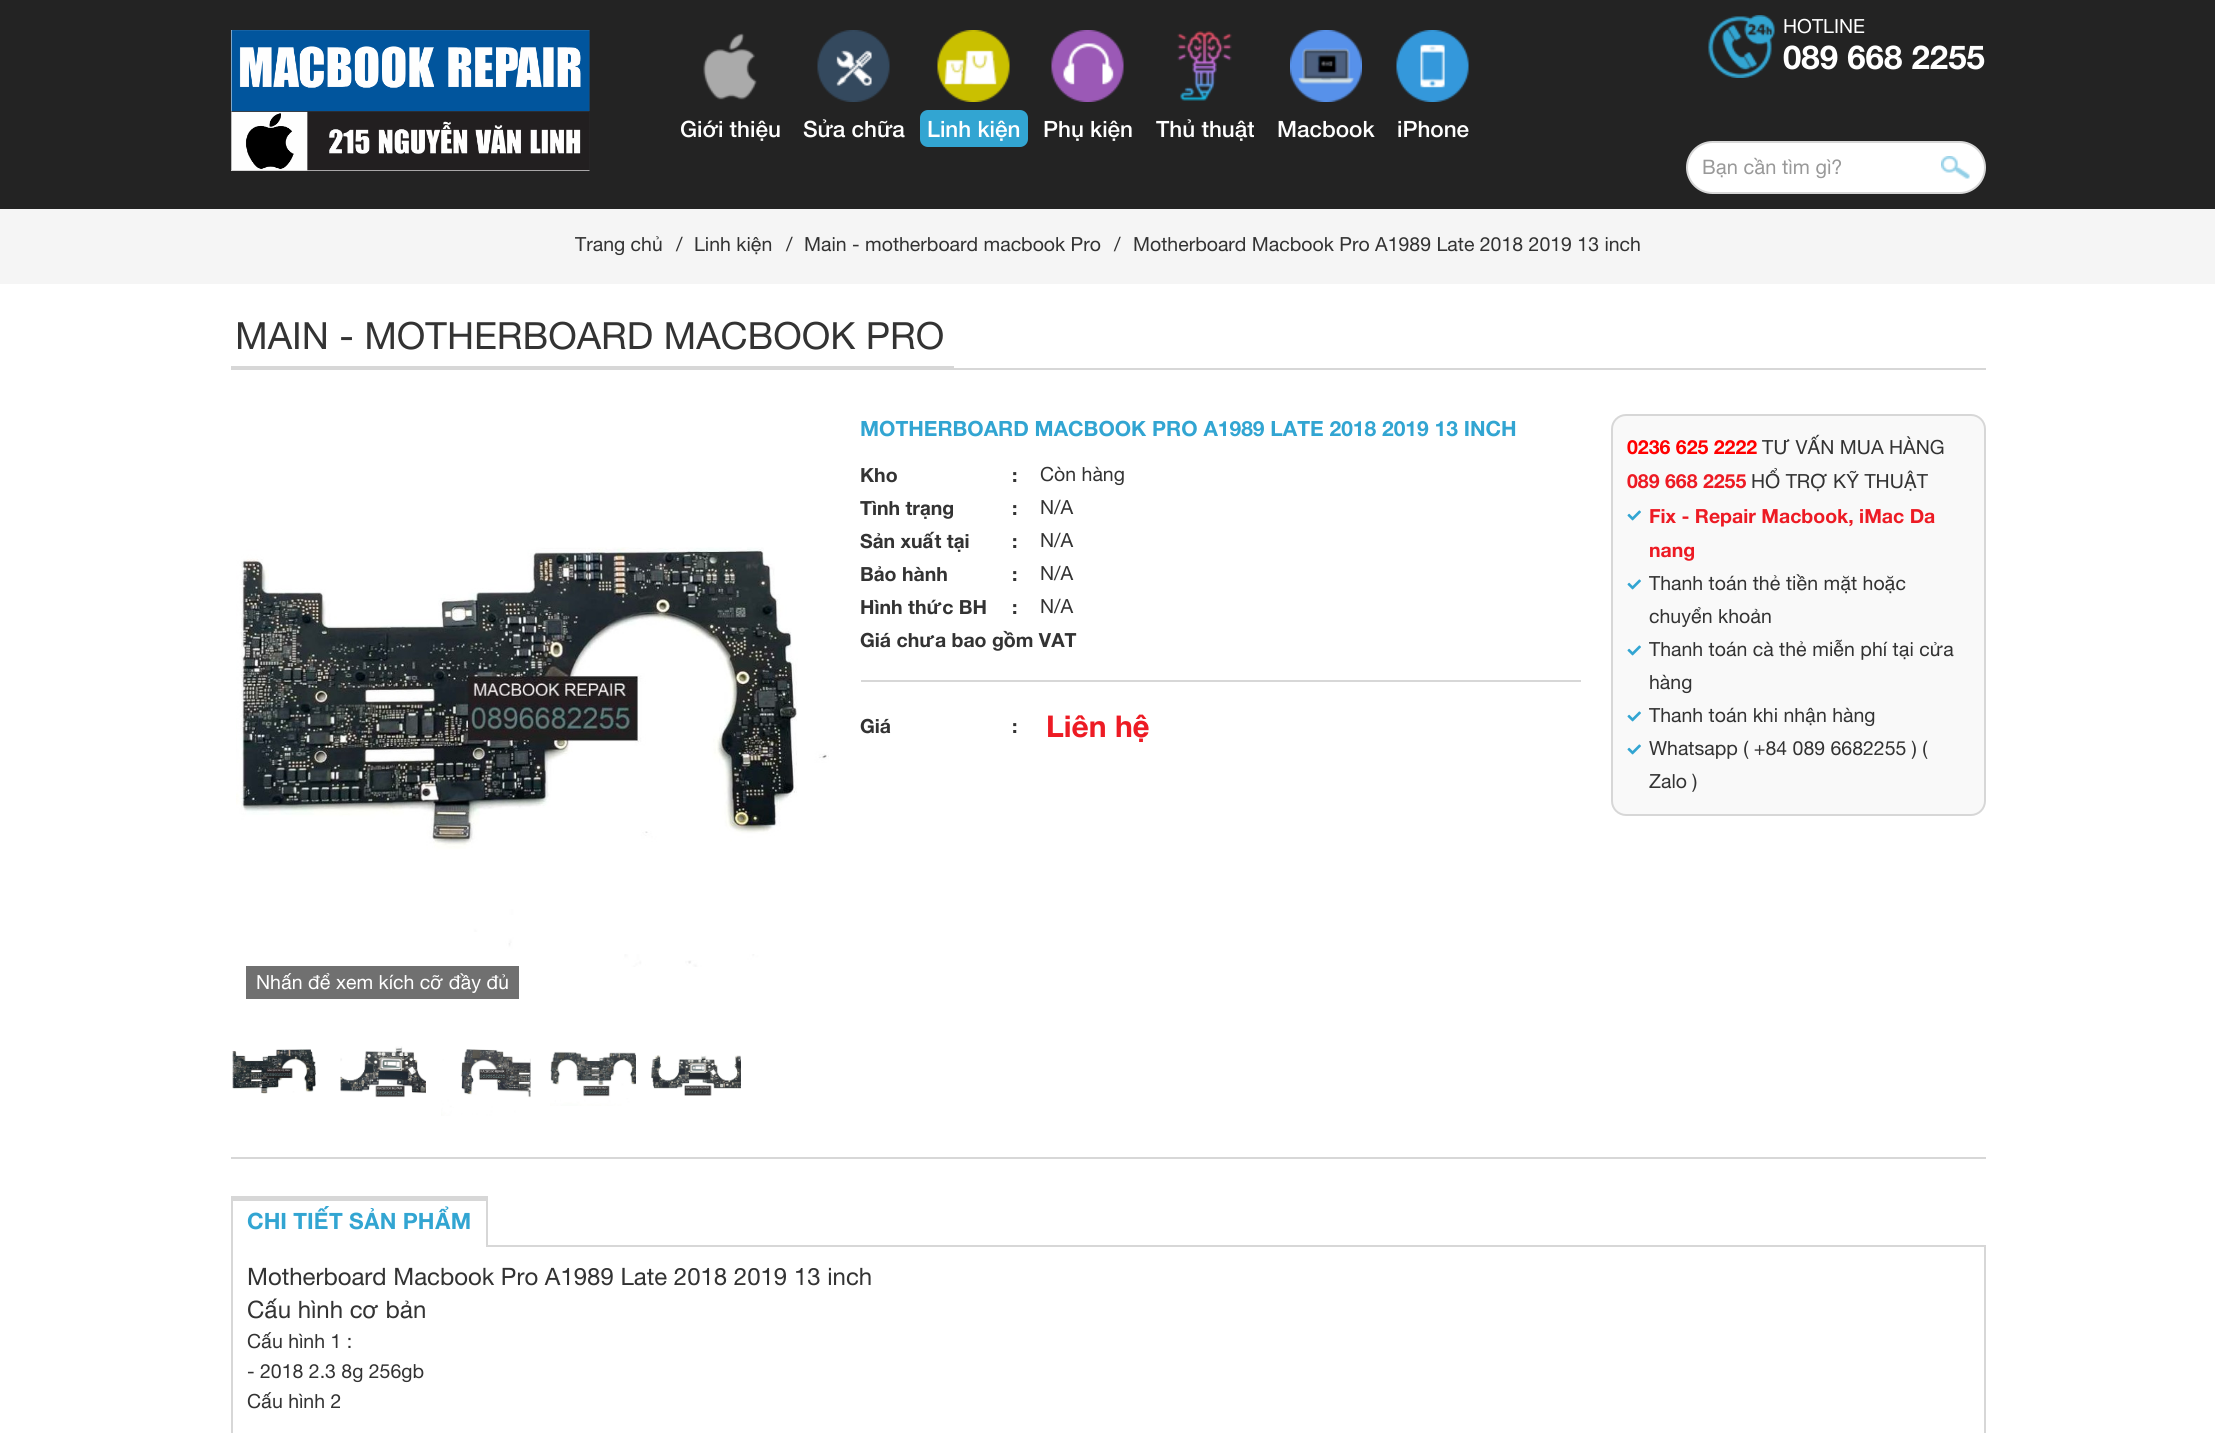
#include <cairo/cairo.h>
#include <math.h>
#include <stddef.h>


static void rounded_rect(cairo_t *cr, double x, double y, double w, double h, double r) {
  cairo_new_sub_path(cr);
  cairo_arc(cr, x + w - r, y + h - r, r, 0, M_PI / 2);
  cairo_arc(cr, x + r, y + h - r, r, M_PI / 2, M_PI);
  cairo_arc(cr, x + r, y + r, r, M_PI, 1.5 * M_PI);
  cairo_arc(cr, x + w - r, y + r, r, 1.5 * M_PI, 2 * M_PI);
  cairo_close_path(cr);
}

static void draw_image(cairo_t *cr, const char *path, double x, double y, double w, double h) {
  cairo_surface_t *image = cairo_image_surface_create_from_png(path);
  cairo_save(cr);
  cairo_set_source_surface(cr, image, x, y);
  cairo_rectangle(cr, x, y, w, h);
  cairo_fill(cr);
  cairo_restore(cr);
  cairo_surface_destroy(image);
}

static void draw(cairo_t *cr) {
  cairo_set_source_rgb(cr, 1, 1, 1);
  cairo_paint(cr);
  cairo_set_source_rgb(cr, 35 / 255.0, 35 / 255.0, 35 / 255.0);
  cairo_rectangle(cr, 0, 0, 2215, 209);
  cairo_fill(cr);
  draw_image(cr, "images/1.png", 231, 30, 359, 141);
  draw_image(cr, "images/2.png", 703, 33, 54, 67);
  draw_image(cr, "images/3.png", 817, 30, 73, 72);
  draw_image(cr, "images/4.png", 937, 30, 73, 72);
  cairo_set_source_rgb(cr, 50 / 255.0, 165 / 255.0, 210 / 255.0);
  rounded_rect(cr, 920, 110, 108, 37, 8);
  cairo_fill(cr);
  draw_image(cr, "images/5.png", 1051, 30, 73, 72);
  draw_image(cr, "images/6.png", 1177, 31, 55, 70);
  draw_image(cr, "images/7.png", 1290, 30, 72, 72);
  draw_image(cr, "images/8.png", 1396, 30, 73, 72);
  draw_image(cr, "images/9.png", 1708, 15, 67, 63);
  cairo_set_source_rgb(cr, 1, 1, 1);
  rounded_rect(cr, 1687, 142, 298, 51, 25.5);
  cairo_fill_preserve(cr);
  cairo_set_source_rgb(cr, 215 / 255.0, 215 / 255.0, 215 / 255.0);
  cairo_stroke(cr);
  draw_image(cr, "images/10.png", 1941, 156, 29, 23);
  cairo_set_source_rgb(cr, 245 / 255.0, 245 / 255.0, 245 / 255.0);
  cairo_rectangle(cr, 0, 209, 2215, 75);
  cairo_fill(cr);
  cairo_set_source_rgb(cr, 215 / 255.0, 215 / 255.0, 215 / 255.0);
  cairo_rectangle(cr, 231, 368, 1755, 2);
  cairo_fill(cr);
  cairo_rectangle(cr, 231, 366, 723, 2);
  cairo_fill(cr);
  cairo_rectangle(cr, 861, 680, 720, 2);
  cairo_fill(cr);
  cairo_set_source_rgb(cr, 249 / 255.0, 249 / 255.0, 249 / 255.0);
  rounded_rect(cr, 1612, 415, 373, 400, 14);
  cairo_fill_preserve(cr);
  cairo_set_source_rgb(cr, 215 / 255.0, 215 / 255.0, 215 / 255.0);
  cairo_stroke(cr);
  draw_image(cr, "images/11.png", 1627, 510, 14, 11);
  draw_image(cr, "images/11.png", 1627, 579, 14, 11);
  draw_image(cr, "images/11.png", 1627, 645, 14, 11);
  draw_image(cr, "images/11.png", 1627, 711, 14, 11);
  draw_image(cr, "images/11.png", 1627, 744, 14, 11);
  draw_image(cr, "images/12.png", 236, 547, 593, 420);
  draw_image(cr, "images/13.png", 232, 1049, 88, 45);
  draw_image(cr, "images/14.png", 340, 1046, 86, 52);
  draw_image(cr, "images/15.png", 441, 1049, 90, 67);
  draw_image(cr, "images/16.png", 550, 1051, 86, 55);
  draw_image(cr, "images/17.png", 651, 1055, 90, 41);
  cairo_set_source_rgb(cr, 112 / 255.0, 112 / 255.0, 112 / 255.0);
  cairo_rectangle(cr, 246, 966, 273, 33);
  cairo_fill(cr);
  cairo_set_source_rgb(cr, 215 / 255.0, 215 / 255.0, 215 / 255.0);
  cairo_rectangle(cr, 231, 1157, 1755, 2);
  cairo_fill(cr);
  cairo_rectangle(cr, 231, 1196, 257, 5);
  cairo_fill(cr);
  cairo_rectangle(cr, 486, 1196, 2, 49);
  cairo_fill(cr);
  cairo_rectangle(cr, 231, 1196, 2, 49);
  cairo_fill(cr);
  cairo_rectangle(cr, 232, 1246, 1753, 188);
  cairo_stroke(cr);
  cairo_set_source_rgb(cr, 1, 1, 1);
  cairo_rectangle(cr, 233, 1245, 253, 2);
  cairo_fill(cr);
  cairo_select_font_face(cr, "Helvetica Neue Medium", CAIRO_FONT_SLANT_NORMAL, CAIRO_FONT_WEIGHT_NORMAL);
  cairo_set_font_size(cr, 22.5);
  cairo_move_to(cr, 680, 137);
  cairo_show_text(cr, "Giới thiệu");
  cairo_move_to(cr, 803, 137);
  cairo_show_text(cr, "Sửa chữa");
  cairo_move_to(cr, 927, 137);
  cairo_show_text(cr, "Linh kiện");
  cairo_move_to(cr, 1043, 137);
  cairo_show_text(cr, "Phụ kiện");
  cairo_move_to(cr, 1156, 137);
  cairo_show_text(cr, "Thủ thuật");
  cairo_move_to(cr, 1277, 137);
  cairo_show_text(cr, "Macbook");
  cairo_move_to(cr, 1397, 137);
  cairo_show_text(cr, "iPhone");
  cairo_select_font_face(cr, "Helvetica Neue", CAIRO_FONT_SLANT_NORMAL, CAIRO_FONT_WEIGHT_NORMAL);
  cairo_set_font_size(cr, 19.5);
  cairo_move_to(cr, 1783, 33);
  cairo_show_text(cr, "HOTLINE");
  cairo_select_font_face(cr, "Helvetica Neue", CAIRO_FONT_SLANT_NORMAL, CAIRO_FONT_WEIGHT_BOLD);
  cairo_set_font_size(cr, 33);
  cairo_move_to(cr, 1783, 69);
  cairo_show_text(cr, "089 668 2255");
  cairo_select_font_face(cr, "Helvetica Neue", CAIRO_FONT_SLANT_NORMAL, CAIRO_FONT_WEIGHT_NORMAL);
  cairo_set_font_size(cr, 20);
  cairo_set_source_rgb(cr, 153 / 255.0, 153 / 255.0, 153 / 255.0);
  cairo_move_to(cr, 1702, 174);
  cairo_show_text(cr, "Bạn cần tìm gì?");
  cairo_set_font_size(cr, 19.5);
  cairo_set_source_rgb(cr, 51 / 255.0, 51 / 255.0, 51 / 255.0);
  cairo_move_to(cr, 575, 251);
  cairo_show_text(cr, "Trang chủ");
  cairo_move_to(cr, 676, 251);
  cairo_show_text(cr, "/");
  cairo_move_to(cr, 694, 251);
  cairo_show_text(cr, "Linh kiện");
  cairo_move_to(cr, 786, 251);
  cairo_show_text(cr, "/");
  cairo_move_to(cr, 804, 251);
  cairo_show_text(cr, "Main - motherboard macbook Pro");
  cairo_move_to(cr, 1114, 251);
  cairo_show_text(cr, "/");
  cairo_move_to(cr, 1133, 251);
  cairo_show_text(cr, "Motherboard Macbook Pro A1989 Late 2018 2019 13 inch");
  cairo_set_font_size(cr, 37.5);
  cairo_move_to(cr, 235, 349);
  cairo_show_text(cr, "MAIN - MOTHERBOARD MACBOOK PRO");
  cairo_select_font_face(cr, "Helvetica Neue", CAIRO_FONT_SLANT_NORMAL, CAIRO_FONT_WEIGHT_BOLD);
  cairo_set_font_size(cr, 21);
  cairo_set_source_rgb(cr, 50 / 255.0, 165 / 255.0, 210 / 255.0);
  cairo_move_to(cr, 860, 436);
  cairo_show_text(cr, "MOTHERBOARD MACBOOK PRO A1989 LATE 2018 2019 13 INCH");
  cairo_set_font_size(cr, 19.5);
  cairo_set_source_rgb(cr, 51 / 255.0, 51 / 255.0, 51 / 255.0);
  cairo_move_to(cr, 860, 482);
  cairo_show_text(cr, "Kho");
  cairo_move_to(cr, 1012, 482);
  cairo_show_text(cr, ":");
  cairo_select_font_face(cr, "Helvetica Neue", CAIRO_FONT_SLANT_NORMAL, CAIRO_FONT_WEIGHT_NORMAL);
  cairo_move_to(cr, 1040, 481);
  cairo_show_text(cr, "Còn hàng");
  cairo_select_font_face(cr, "Helvetica Neue", CAIRO_FONT_SLANT_NORMAL, CAIRO_FONT_WEIGHT_BOLD);
  cairo_move_to(cr, 860, 515);
  cairo_show_text(cr, "Tình trạng");
  cairo_move_to(cr, 1012, 515);
  cairo_show_text(cr, ":");
  cairo_select_font_face(cr, "Helvetica Neue", CAIRO_FONT_SLANT_NORMAL, CAIRO_FONT_WEIGHT_NORMAL);
  cairo_move_to(cr, 1040, 514);
  cairo_show_text(cr, "N/A");
  cairo_select_font_face(cr, "Helvetica Neue", CAIRO_FONT_SLANT_NORMAL, CAIRO_FONT_WEIGHT_BOLD);
  cairo_move_to(cr, 860, 548);
  cairo_show_text(cr, "Sản xuất tại");
  cairo_move_to(cr, 1012, 548);
  cairo_show_text(cr, ":");
  cairo_select_font_face(cr, "Helvetica Neue", CAIRO_FONT_SLANT_NORMAL, CAIRO_FONT_WEIGHT_NORMAL);
  cairo_move_to(cr, 1040, 547);
  cairo_show_text(cr, "N/A");
  cairo_select_font_face(cr, "Helvetica Neue", CAIRO_FONT_SLANT_NORMAL, CAIRO_FONT_WEIGHT_BOLD);
  cairo_move_to(cr, 860, 581);
  cairo_show_text(cr, "Bảo hành");
  cairo_move_to(cr, 1012, 581);
  cairo_show_text(cr, ":");
  cairo_select_font_face(cr, "Helvetica Neue", CAIRO_FONT_SLANT_NORMAL, CAIRO_FONT_WEIGHT_NORMAL);
  cairo_move_to(cr, 1040, 580);
  cairo_show_text(cr, "N/A");
  cairo_select_font_face(cr, "Helvetica Neue", CAIRO_FONT_SLANT_NORMAL, CAIRO_FONT_WEIGHT_BOLD);
  cairo_move_to(cr, 860, 614);
  cairo_show_text(cr, "Hình thức BH");
  cairo_move_to(cr, 1012, 614);
  cairo_show_text(cr, ":");
  cairo_select_font_face(cr, "Helvetica Neue", CAIRO_FONT_SLANT_NORMAL, CAIRO_FONT_WEIGHT_NORMAL);
  cairo_move_to(cr, 1040, 613);
  cairo_show_text(cr, "N/A");
  cairo_select_font_face(cr, "Helvetica Neue", CAIRO_FONT_SLANT_NORMAL, CAIRO_FONT_WEIGHT_BOLD);
  cairo_move_to(cr, 860, 647);
  cairo_show_text(cr, "Giá chưa bao gồm VAT");
  cairo_move_to(cr, 860, 733);
  cairo_show_text(cr, "Giá");
  cairo_move_to(cr, 1012, 733);
  cairo_show_text(cr, ":");
  cairo_set_font_size(cr, 30);
  cairo_set_source_rgb(cr, 237 / 255.0, 27 / 255.0, 36 / 255.0);
  cairo_move_to(cr, 1046, 737);
  cairo_show_text(cr, "Liên hệ");
  cairo_set_font_size(cr, 19.5);
  cairo_set_source_rgb(cr, 1, 0, 0);
  cairo_move_to(cr, 1627, 454);
  cairo_show_text(cr, "0236 625 2222");
  cairo_select_font_face(cr, "Helvetica Neue", CAIRO_FONT_SLANT_NORMAL, CAIRO_FONT_WEIGHT_NORMAL);
  cairo_set_source_rgb(cr, 51 / 255.0, 51 / 255.0, 51 / 255.0);
  cairo_move_to(cr, 1762, 454);
  cairo_show_text(cr, "TƯ VẤN MUA HÀNG");
  cairo_select_font_face(cr, "Helvetica Neue", CAIRO_FONT_SLANT_NORMAL, CAIRO_FONT_WEIGHT_BOLD);
  cairo_set_source_rgb(cr, 237 / 255.0, 27 / 255.0, 36 / 255.0);
  cairo_move_to(cr, 1627, 488);
  cairo_show_text(cr, "089 668 2255");
  cairo_select_font_face(cr, "Helvetica Neue", CAIRO_FONT_SLANT_NORMAL, CAIRO_FONT_WEIGHT_NORMAL);
  cairo_set_source_rgb(cr, 51 / 255.0, 51 / 255.0, 51 / 255.0);
  cairo_move_to(cr, 1751, 488);
  cairo_show_text(cr, "HỔ TRỢ KỸ THUẬT");
  cairo_select_font_face(cr, "Helvetica Neue", CAIRO_FONT_SLANT_NORMAL, CAIRO_FONT_WEIGHT_BOLD);
  cairo_set_source_rgb(cr, 237 / 255.0, 27 / 255.0, 36 / 255.0);
  cairo_move_to(cr, 1649, 523);
  cairo_show_text(cr, "Fix - Repair Macbook, iMac Da");
  cairo_move_to(cr, 1649, 557);
  cairo_show_text(cr, "nang");
  cairo_select_font_face(cr, "Helvetica Neue", CAIRO_FONT_SLANT_NORMAL, CAIRO_FONT_WEIGHT_NORMAL);
  cairo_set_source_rgb(cr, 51 / 255.0, 51 / 255.0, 51 / 255.0);
  cairo_move_to(cr, 1649, 590);
  cairo_show_text(cr, "Thanh toán thẻ tiền mặt hoặc");
  cairo_move_to(cr, 1649, 623);
  cairo_show_text(cr, "chuyển khoản");
  cairo_move_to(cr, 1649, 656);
  cairo_show_text(cr, "Thanh toán cà thẻ miễn phí tại cửa");
  cairo_move_to(cr, 1649, 689);
  cairo_show_text(cr, "hàng");
  cairo_move_to(cr, 1649, 722);
  cairo_show_text(cr, "Thanh toán khi nhận hàng");
  cairo_move_to(cr, 1649, 755);
  cairo_show_text(cr, "Whatsapp ( +84 089 6682255 ) (");
  cairo_move_to(cr, 1649, 788);
  cairo_show_text(cr, "Zalo )");
  cairo_set_source_rgb(cr, 1, 1, 1);
  cairo_move_to(cr, 256, 989);
  cairo_show_text(cr, "Nhấn để xem kích cỡ đầy đủ");
  cairo_select_font_face(cr, "Helvetica Neue", CAIRO_FONT_SLANT_NORMAL, CAIRO_FONT_WEIGHT_BOLD);
  cairo_set_font_size(cr, 22.5);
  cairo_set_source_rgb(cr, 50 / 255.0, 165 / 255.0, 210 / 255.0);
  cairo_move_to(cr, 247, 1229);
  cairo_show_text(cr, "CHI TIẾT SẢN PHẨM");
  cairo_select_font_face(cr, "Helvetica Neue", CAIRO_FONT_SLANT_NORMAL, CAIRO_FONT_WEIGHT_NORMAL);
  cairo_set_font_size(cr, 24);
  cairo_set_source_rgb(cr, 51 / 255.0, 51 / 255.0, 51 / 255.0);
  cairo_move_to(cr, 247, 1285);
  cairo_show_text(cr, "Motherboard Macbook Pro A1989 Late 2018 2019 13 inch");
  cairo_move_to(cr, 247, 1318);
  cairo_show_text(cr, "Cấu hình cơ bản");
  cairo_set_font_size(cr, 19.5);
  cairo_move_to(cr, 247, 1348);
  cairo_show_text(cr, "Cấu hình 1 :");
  cairo_move_to(cr, 247, 1378);
  cairo_show_text(cr, "- 2018 2.3 8g 256gb");
  cairo_move_to(cr, 247, 1408);
  cairo_show_text(cr, "Cấu hình 2");
}

int main(void) {
  cairo_surface_t *surface = cairo_image_surface_create(CAIRO_FORMAT_RGB24, 2215, 1433);
  cairo_t *cr = cairo_create(surface);
  cairo_font_options_t *options = cairo_font_options_create();
  cairo_font_options_set_hint_metrics(options, CAIRO_HINT_METRICS_OFF);
  cairo_font_options_set_hint_style(options, CAIRO_HINT_STYLE_NONE);
  cairo_set_font_options(cr, options);
  cairo_set_miter_limit(cr, 4);
  draw(cr);
  cairo_surface_write_to_png(surface, "out.png");
  cairo_font_options_destroy(options);
  cairo_destroy(cr);
  cairo_surface_destroy(surface);
  return 0;
}
